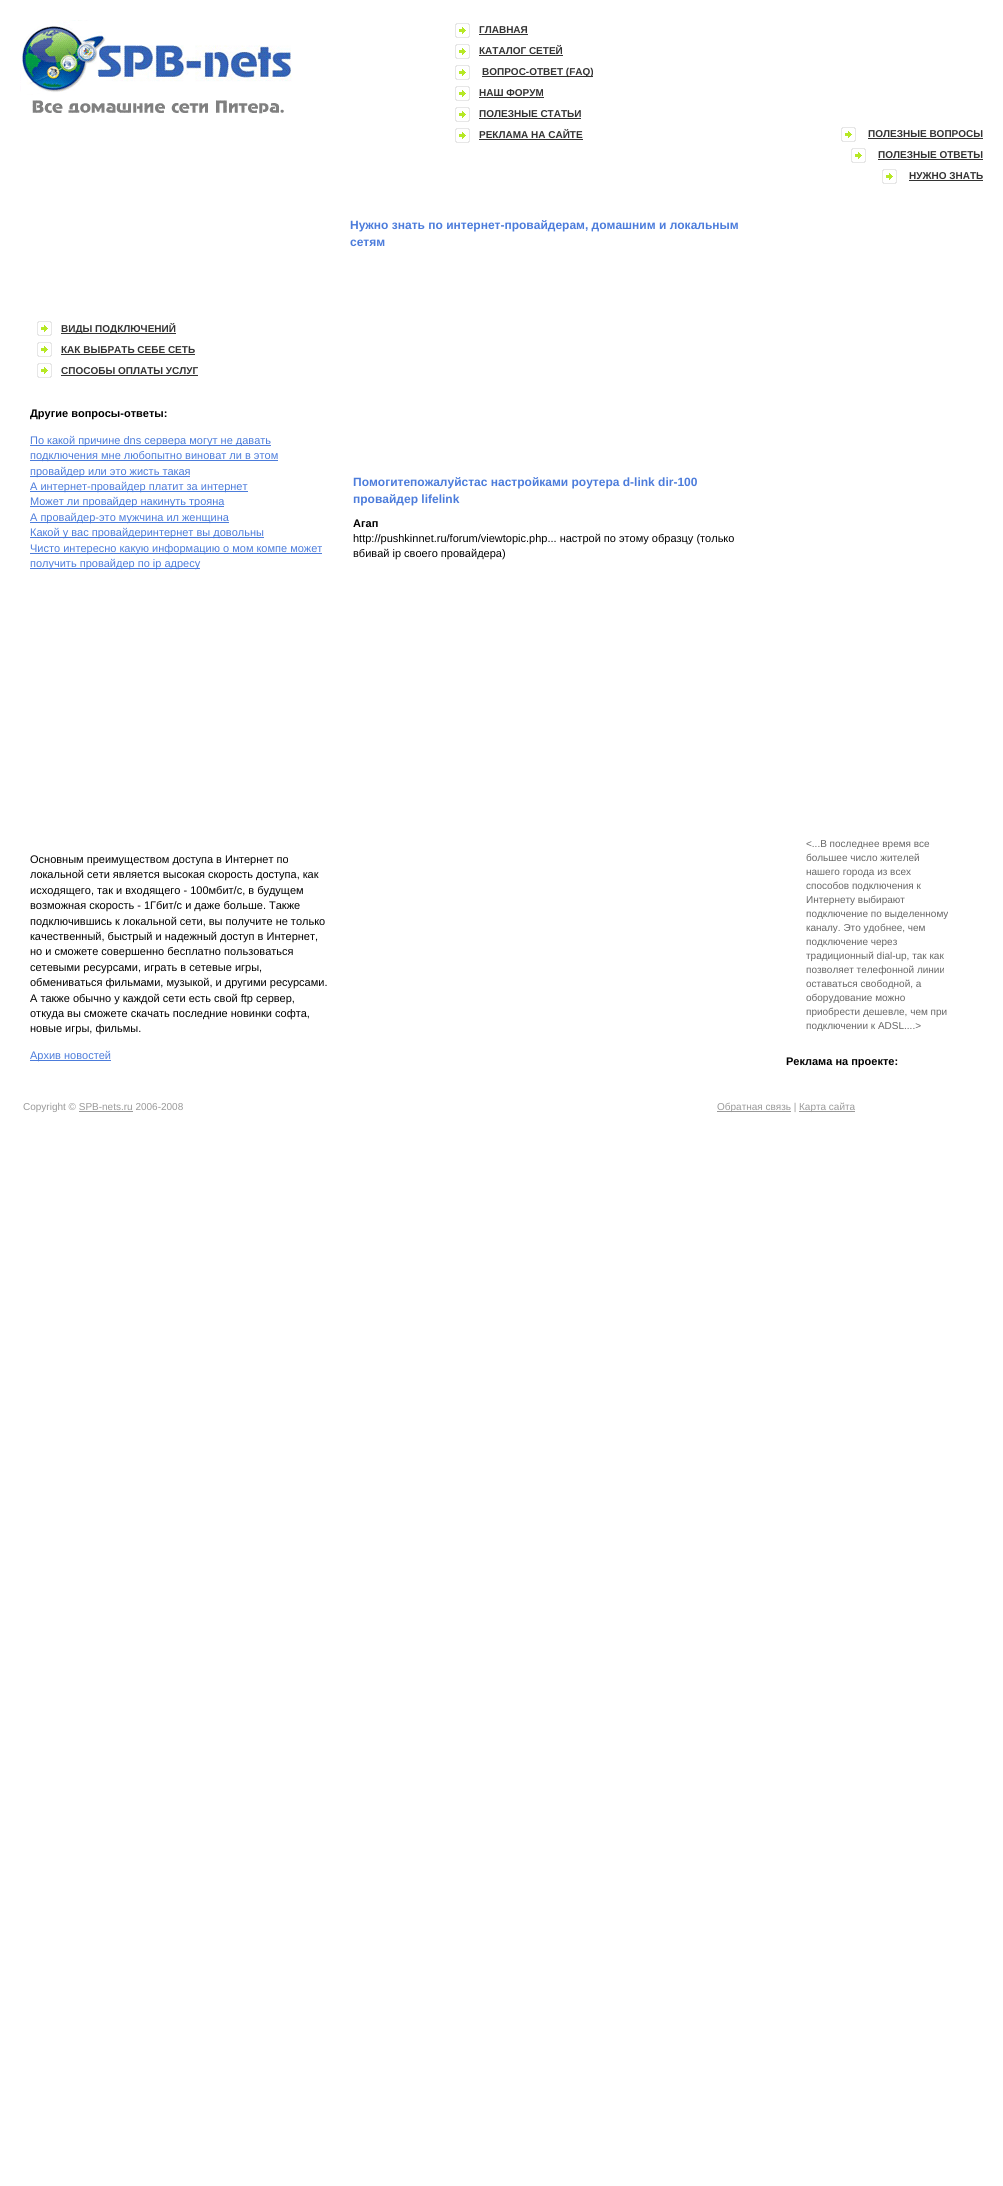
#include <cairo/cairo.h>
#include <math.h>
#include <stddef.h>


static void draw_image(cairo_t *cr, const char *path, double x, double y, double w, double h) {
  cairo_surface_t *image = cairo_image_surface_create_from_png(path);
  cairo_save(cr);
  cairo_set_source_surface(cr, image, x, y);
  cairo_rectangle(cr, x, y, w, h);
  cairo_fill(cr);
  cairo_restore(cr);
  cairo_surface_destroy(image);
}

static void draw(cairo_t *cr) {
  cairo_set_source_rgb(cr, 1, 1, 1);
  cairo_paint(cr);
  draw_image(cr, "images/1.png", 20, 20, 272, 94);
  draw_image(cr, "images/2.png", 455, 23, 15, 15);
  cairo_set_source_rgb(cr, 51 / 255.0, 51 / 255.0, 51 / 255.0);
  cairo_rectangle(cr, 479, 34, 49, 1);
  cairo_fill(cr);
  draw_image(cr, "images/2.png", 455, 44, 15, 15);
  cairo_rectangle(cr, 479, 55, 84, 1);
  cairo_fill(cr);
  draw_image(cr, "images/2.png", 455, 65, 15, 15);
  cairo_rectangle(cr, 482, 76, 111, 1);
  cairo_fill(cr);
  draw_image(cr, "images/2.png", 455, 86, 15, 15);
  cairo_rectangle(cr, 479, 97, 65, 1);
  cairo_fill(cr);
  draw_image(cr, "images/2.png", 455, 107, 15, 15);
  cairo_rectangle(cr, 479, 118, 102, 1);
  cairo_fill(cr);
  draw_image(cr, "images/2.png", 455, 128, 15, 15);
  cairo_rectangle(cr, 479, 139, 104, 1);
  cairo_fill(cr);
  draw_image(cr, "images/2.png", 841, 127, 15, 15);
  cairo_rectangle(cr, 868, 138, 115, 1);
  cairo_fill(cr);
  draw_image(cr, "images/2.png", 851, 148, 15, 15);
  cairo_rectangle(cr, 878, 159, 105, 1);
  cairo_fill(cr);
  draw_image(cr, "images/2.png", 882, 169, 15, 15);
  cairo_rectangle(cr, 909, 180, 74, 1);
  cairo_fill(cr);
  draw_image(cr, "images/2.png", 37, 321, 15, 15);
  cairo_rectangle(cr, 61, 333, 115, 1);
  cairo_fill(cr);
  draw_image(cr, "images/2.png", 37, 342, 15, 15);
  cairo_rectangle(cr, 61, 354, 134, 1);
  cairo_fill(cr);
  draw_image(cr, "images/2.png", 37, 363, 15, 15);
  cairo_rectangle(cr, 61, 375, 137, 1);
  cairo_fill(cr);
  cairo_set_source_rgb(cr, 76 / 255.0, 124 / 255.0, 219 / 255.0);
  cairo_rectangle(cr, 30, 445, 241, 1);
  cairo_fill(cr);
  cairo_rectangle(cr, 30, 460, 248, 1);
  cairo_fill(cr);
  cairo_rectangle(cr, 30, 476, 160, 1);
  cairo_fill(cr);
  cairo_rectangle(cr, 30, 491, 218, 1);
  cairo_fill(cr);
  cairo_rectangle(cr, 30, 506, 194, 1);
  cairo_fill(cr);
  cairo_rectangle(cr, 30, 522, 199, 1);
  cairo_fill(cr);
  cairo_rectangle(cr, 30, 537, 234, 1);
  cairo_fill(cr);
  cairo_rectangle(cr, 30, 553, 292, 1);
  cairo_fill(cr);
  cairo_rectangle(cr, 30, 568, 170, 1);
  cairo_fill(cr);
  cairo_rectangle(cr, 30, 1060, 81, 1);
  cairo_fill(cr);
  cairo_set_source_rgb(cr, 153 / 255.0, 153 / 255.0, 153 / 255.0);
  cairo_rectangle(cr, 79, 1111, 54, 1);
  cairo_fill(cr);
  cairo_rectangle(cr, 717, 1111, 74, 1);
  cairo_fill(cr);
  cairo_rectangle(cr, 799, 1111, 56, 1);
  cairo_fill(cr);
  cairo_select_font_face(cr, "Liberation Sans", CAIRO_FONT_SLANT_NORMAL, CAIRO_FONT_WEIGHT_BOLD);
  cairo_set_font_size(cr, 10);
  cairo_set_source_rgb(cr, 51 / 255.0, 51 / 255.0, 51 / 255.0);
  cairo_move_to(cr, 479, 33);
  cairo_show_text(cr, "ГЛАВНАЯ");
  cairo_move_to(cr, 479, 54);
  cairo_show_text(cr, "КАТАЛОГ СЕТЕЙ");
  cairo_move_to(cr, 482, 75);
  cairo_show_text(cr, "ВОПРОС-ОТВЕТ (FAQ)");
  cairo_move_to(cr, 479, 96);
  cairo_show_text(cr, "НАШ ФОРУМ");
  cairo_move_to(cr, 479, 117);
  cairo_show_text(cr, "ПОЛЕЗНЫЕ СТАТЬИ");
  cairo_move_to(cr, 479, 138);
  cairo_show_text(cr, "РЕКЛАМА НА САЙТЕ");
  cairo_move_to(cr, 868, 137);
  cairo_show_text(cr, "ПОЛЕЗНЫЕ ВОПРОСЫ");
  cairo_move_to(cr, 878, 158);
  cairo_show_text(cr, "ПОЛЕЗНЫЕ ОТВЕТЫ");
  cairo_move_to(cr, 909, 179);
  cairo_show_text(cr, "НУЖНО ЗНАТЬ");
  cairo_move_to(cr, 61, 332);
  cairo_show_text(cr, "ВИДЫ ПОДКЛЮЧЕНИЙ");
  cairo_move_to(cr, 61, 353);
  cairo_show_text(cr, "КАК ВЫБРАТЬ СЕБЕ СЕТЬ");
  cairo_move_to(cr, 61, 374);
  cairo_show_text(cr, "СПОСОБЫ ОПЛАТЫ УСЛУГ");
  cairo_set_font_size(cr, 11);
  cairo_set_source_rgb(cr, 0, 0, 0);
  cairo_move_to(cr, 30, 417);
  cairo_show_text(cr, "Другие вопросы-ответы:");
  cairo_select_font_face(cr, "Liberation Sans", CAIRO_FONT_SLANT_NORMAL, CAIRO_FONT_WEIGHT_NORMAL);
  cairo_set_source_rgb(cr, 76 / 255.0, 124 / 255.0, 219 / 255.0);
  cairo_move_to(cr, 30, 444);
  cairo_show_text(cr, "По какой причине dns сервера могут не давать");
  cairo_move_to(cr, 30, 459);
  cairo_show_text(cr, "подключения мне любопытно виноват ли в этом");
  cairo_move_to(cr, 30, 475);
  cairo_show_text(cr, "провайдер или это жисть такая");
  cairo_move_to(cr, 30, 490);
  cairo_show_text(cr, "А интернет-провайдер платит за интернет");
  cairo_move_to(cr, 30, 505);
  cairo_show_text(cr, "Может ли провайдер накинуть трояна");
  cairo_move_to(cr, 30, 521);
  cairo_show_text(cr, "А провайдер-это мужчина ил женщина");
  cairo_move_to(cr, 30, 536);
  cairo_show_text(cr, "Какой у вас провайдеринтернет вы довольны");
  cairo_move_to(cr, 30, 552);
  cairo_show_text(cr, "Чисто интересно какую информацию о мом компе может");
  cairo_move_to(cr, 30, 567);
  cairo_show_text(cr, "получить провайдер по ip адресу");
  cairo_set_source_rgb(cr, 0, 0, 0);
  cairo_move_to(cr, 30, 863);
  cairo_show_text(cr, "Основным преимуществом доступа в Интернет по");
  cairo_move_to(cr, 30, 878);
  cairo_show_text(cr, "локальной сети является высокая скорость доступа, как");
  cairo_move_to(cr, 30, 894);
  cairo_show_text(cr, "исходящего, так и входящего - 100мбит/с, в будущем");
  cairo_move_to(cr, 30, 909);
  cairo_show_text(cr, "возможная скорость - 1Гбит/с и даже больше. Также");
  cairo_move_to(cr, 30, 925);
  cairo_show_text(cr, "подключившись к локальной сети, вы получите не только");
  cairo_move_to(cr, 30, 940);
  cairo_show_text(cr, "качественный, быстрый и надежный доступ в Интернет,");
  cairo_move_to(cr, 30, 955);
  cairo_show_text(cr, "но и сможете совершенно бесплатно пользоваться");
  cairo_move_to(cr, 30, 971);
  cairo_show_text(cr, "сетевыми ресурсами, играть в сетевые игры,");
  cairo_move_to(cr, 30, 986);
  cairo_show_text(cr, "обмениваться фильмами, музыкой, и другими ресурсами.");
  cairo_move_to(cr, 30, 1002);
  cairo_show_text(cr, "А также обычно у каждой сети есть свой ftp сервер,");
  cairo_move_to(cr, 30, 1017);
  cairo_show_text(cr, "откуда вы сможете скачать последние новинки софта,");
  cairo_move_to(cr, 30, 1032);
  cairo_show_text(cr, "новые игры, фильмы.");
  cairo_set_source_rgb(cr, 76 / 255.0, 124 / 255.0, 219 / 255.0);
  cairo_move_to(cr, 30, 1059);
  cairo_show_text(cr, "Архив новостей");
  cairo_select_font_face(cr, "Liberation Sans", CAIRO_FONT_SLANT_NORMAL, CAIRO_FONT_WEIGHT_BOLD);
  cairo_set_font_size(cr, 12);
  cairo_move_to(cr, 350, 229);
  cairo_show_text(cr, "Нужно знать по интернет-провайдерам, домашним и локальным");
  cairo_move_to(cr, 350, 246);
  cairo_show_text(cr, "сетям");
  cairo_move_to(cr, 353, 486);
  cairo_show_text(cr, "Помогитепожалуйстас настройками роутера d-link dir-100");
  cairo_move_to(cr, 353, 503);
  cairo_show_text(cr, "провайдер lifelink");
  cairo_set_font_size(cr, 11);
  cairo_set_source_rgb(cr, 0, 0, 0);
  cairo_move_to(cr, 353, 527);
  cairo_show_text(cr, "Агап");
  cairo_select_font_face(cr, "Liberation Sans", CAIRO_FONT_SLANT_NORMAL, CAIRO_FONT_WEIGHT_NORMAL);
  cairo_move_to(cr, 353, 542);
  cairo_show_text(cr, "http://pushkinnet.ru/forum/viewtopic.php... настрой по этому образцу (только");
  cairo_move_to(cr, 353, 557);
  cairo_show_text(cr, "вбивай ip своего провайдера)");
  cairo_set_font_size(cr, 10);
  cairo_set_source_rgb(cr, 102 / 255.0, 102 / 255.0, 102 / 255.0);
  cairo_move_to(cr, 806, 847);
  cairo_show_text(cr, "<...В последнее время все");
  cairo_move_to(cr, 806, 861);
  cairo_show_text(cr, "большее число жителей");
  cairo_move_to(cr, 806, 875);
  cairo_show_text(cr, "нашего города из всех");
  cairo_move_to(cr, 806, 889);
  cairo_show_text(cr, "способов подключения к");
  cairo_move_to(cr, 806, 903);
  cairo_show_text(cr, "Интернету выбирают");
  cairo_move_to(cr, 806, 917);
  cairo_show_text(cr, "подключение по выделенному");
  cairo_move_to(cr, 806, 931);
  cairo_show_text(cr, "каналу. Это удобнее, чем");
  cairo_move_to(cr, 806, 945);
  cairo_show_text(cr, "подключение через");
  cairo_move_to(cr, 806, 959);
  cairo_show_text(cr, "традиционный dial-up, так как");
  cairo_move_to(cr, 806, 973);
  cairo_show_text(cr, "позволяет телефонной линии");
  cairo_move_to(cr, 806, 987);
  cairo_show_text(cr, "оставаться свободной, а");
  cairo_move_to(cr, 806, 1001);
  cairo_show_text(cr, "оборудование можно");
  cairo_move_to(cr, 806, 1015);
  cairo_show_text(cr, "приобрести дешевле, чем при");
  cairo_move_to(cr, 806, 1029);
  cairo_show_text(cr, "подключении к ADSL....>");
  cairo_select_font_face(cr, "Liberation Sans", CAIRO_FONT_SLANT_NORMAL, CAIRO_FONT_WEIGHT_BOLD);
  cairo_set_font_size(cr, 11);
  cairo_set_source_rgb(cr, 0, 0, 0);
  cairo_move_to(cr, 786, 1065);
  cairo_show_text(cr, "Реклама на проекте:");
  cairo_select_font_face(cr, "Liberation Sans", CAIRO_FONT_SLANT_NORMAL, CAIRO_FONT_WEIGHT_NORMAL);
  cairo_set_font_size(cr, 10);
  cairo_set_source_rgb(cr, 153 / 255.0, 153 / 255.0, 153 / 255.0);
  cairo_move_to(cr, 23, 1110);
  cairo_show_text(cr, "Copyright © SPB-nets.ru 2006-2008");
  cairo_move_to(cr, 717, 1110);
  cairo_show_text(cr, "Обратная связь |");
  cairo_move_to(cr, 799, 1110);
  cairo_show_text(cr, "Карта сайта");
}

int main(void) {
  cairo_surface_t *surface = cairo_image_surface_create(CAIRO_FORMAT_RGB24, 1003, 2186);
  cairo_t *cr = cairo_create(surface);
  cairo_font_options_t *options = cairo_font_options_create();
  cairo_font_options_set_hint_metrics(options, CAIRO_HINT_METRICS_OFF);
  cairo_font_options_set_hint_style(options, CAIRO_HINT_STYLE_NONE);
  cairo_set_font_options(cr, options);
  cairo_set_miter_limit(cr, 4);
  draw(cr);
  cairo_surface_write_to_png(surface, "out.png");
  cairo_font_options_destroy(options);
  cairo_destroy(cr);
  cairo_surface_destroy(surface);
  return 0;
}
